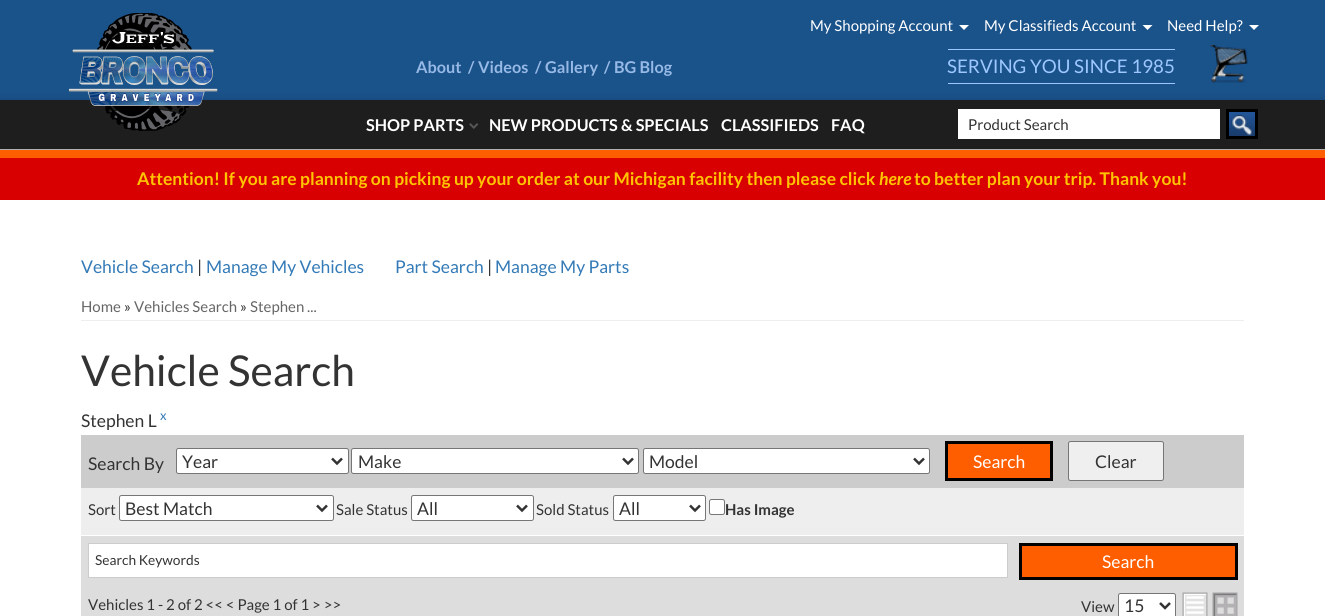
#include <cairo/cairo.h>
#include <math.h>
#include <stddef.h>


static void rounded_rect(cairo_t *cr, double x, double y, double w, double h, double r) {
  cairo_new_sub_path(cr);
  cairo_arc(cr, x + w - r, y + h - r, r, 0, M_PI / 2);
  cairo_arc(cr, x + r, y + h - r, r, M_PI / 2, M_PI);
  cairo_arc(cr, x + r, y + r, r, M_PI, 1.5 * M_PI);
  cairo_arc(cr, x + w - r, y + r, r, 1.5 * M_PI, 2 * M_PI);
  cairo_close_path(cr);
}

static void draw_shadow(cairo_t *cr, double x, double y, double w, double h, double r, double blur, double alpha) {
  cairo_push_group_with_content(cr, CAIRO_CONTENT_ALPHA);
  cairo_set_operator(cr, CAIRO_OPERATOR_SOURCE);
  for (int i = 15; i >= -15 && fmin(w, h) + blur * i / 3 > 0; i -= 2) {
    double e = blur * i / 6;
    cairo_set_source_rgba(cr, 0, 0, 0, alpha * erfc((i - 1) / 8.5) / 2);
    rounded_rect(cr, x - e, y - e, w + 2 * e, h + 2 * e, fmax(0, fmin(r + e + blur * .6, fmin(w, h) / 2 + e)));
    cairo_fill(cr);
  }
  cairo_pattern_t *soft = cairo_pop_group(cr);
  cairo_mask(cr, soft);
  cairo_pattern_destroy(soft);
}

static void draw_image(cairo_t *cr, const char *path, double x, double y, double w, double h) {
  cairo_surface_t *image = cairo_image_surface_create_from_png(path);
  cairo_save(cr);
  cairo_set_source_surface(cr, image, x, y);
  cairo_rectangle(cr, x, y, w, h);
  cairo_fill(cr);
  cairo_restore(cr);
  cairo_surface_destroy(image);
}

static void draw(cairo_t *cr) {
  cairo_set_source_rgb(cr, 1, 1, 1);
  cairo_paint(cr);
  cairo_set_source_rgb(cr, 26 / 255.0, 82 / 255.0, 138 / 255.0);
  cairo_rectangle(cr, 0, 0, 1325, 100);
  cairo_fill(cr);
  cairo_set_source_rgb(cr, 0, 0, 0);
  draw_shadow(cr, 0, 104, 1325, 57, 0, 6, 0.3);
  cairo_set_source_rgb(cr, 30 / 255.0, 30 / 255.0, 30 / 255.0);
  cairo_rectangle(cr, 0, 100, 1325, 49);
  cairo_fill(cr);
  draw_image(cr, "images/1.png", 69, 13, 149, 118);
  cairo_set_source_rgb(cr, 1, 1, 1);
  cairo_new_path(cr);
  cairo_move_to(cr, 959, 25);
  cairo_line_to(cr, 969, 25);
  cairo_line_to(cr, 964, 30);
  cairo_close_path(cr);
  cairo_fill(cr);
  cairo_new_path(cr);
  cairo_move_to(cr, 1142.5, 25);
  cairo_line_to(cr, 1152.5, 25);
  cairo_line_to(cr, 1147.5, 30);
  cairo_close_path(cr);
  cairo_fill(cr);
  cairo_new_path(cr);
  cairo_move_to(cr, 1249, 25);
  cairo_line_to(cr, 1259, 25);
  cairo_line_to(cr, 1254, 30);
  cairo_close_path(cr);
  cairo_fill(cr);
  cairo_set_source_rgb(cr, 157 / 255.0, 200 / 255.0, 1);
  cairo_rectangle(cr, 948, 49, 227, 1);
  cairo_fill(cr);
  cairo_rectangle(cr, 948, 83, 227, 1);
  cairo_fill(cr);
  draw_image(cr, "images/2.png", 1210, 45, 38, 38);
  cairo_set_source_rgb(cr, 1, 1, 1);
  cairo_rectangle(cr, 958, 109, 262, 30);
  cairo_fill(cr);
  draw_image(cr, "images/3.png", 1229, 112, 26, 24);
  cairo_rectangle(cr, 1227.5, 110.5, 29, 27);
  cairo_set_source_rgb(cr, 0, 0, 0);
  cairo_set_line_width(cr, 3);
  cairo_stroke(cr);
  cairo_set_source_rgb(cr, 176 / 255.0, 176 / 255.0, 176 / 255.0);
  cairo_rectangle(cr, 0, 149, 1325, 1);
  cairo_fill(cr);
  cairo_set_source_rgb(cr, 1, 94 / 255.0, 0);
  cairo_rectangle(cr, 0, 150, 1325, 8);
  cairo_fill(cr);
  draw_image(cr, "images/4.png", 469, 123, 10, 6);
  cairo_set_source_rgb(cr, 216 / 255.0, 0, 0);
  cairo_rectangle(cr, 0, 158, 1325, 42);
  cairo_fill(cr);
  cairo_set_source_rgb(cr, 238 / 255.0, 238 / 255.0, 238 / 255.0);
  cairo_rectangle(cr, 81, 320, 1163, 1);
  cairo_fill(cr);
  cairo_set_source_rgb(cr, 204 / 255.0, 204 / 255.0, 204 / 255.0);
  cairo_rectangle(cr, 81, 435, 1163, 53);
  cairo_fill(cr);
  cairo_set_source_rgb(cr, 1, 1, 1);
  rounded_rect(cr, 176.5, 448.5, 172, 25, 2);
  cairo_fill_preserve(cr);
  cairo_set_source_rgb(cr, 118 / 255.0, 118 / 255.0, 118 / 255.0);
  cairo_set_line_width(cr, 1);
  cairo_stroke(cr);
  cairo_new_path(cr);
  cairo_move_to(cr, 332, 458.5);
  cairo_line_to(cr, 337, 463.5);
  cairo_line_to(cr, 342, 458.5);
  cairo_set_source_rgb(cr, 51 / 255.0, 51 / 255.0, 51 / 255.0);
  cairo_set_line_width(cr, 2.5);
  cairo_stroke(cr);
  cairo_set_source_rgb(cr, 1, 1, 1);
  rounded_rect(cr, 351.5, 448.5, 287, 25, 2);
  cairo_fill_preserve(cr);
  cairo_set_source_rgb(cr, 118 / 255.0, 118 / 255.0, 118 / 255.0);
  cairo_set_line_width(cr, 1);
  cairo_stroke(cr);
  cairo_new_path(cr);
  cairo_move_to(cr, 623, 458.5);
  cairo_line_to(cr, 628, 463.5);
  cairo_line_to(cr, 633, 458.5);
  cairo_set_source_rgb(cr, 51 / 255.0, 51 / 255.0, 51 / 255.0);
  cairo_set_line_width(cr, 2.5);
  cairo_stroke(cr);
  cairo_set_source_rgb(cr, 1, 1, 1);
  rounded_rect(cr, 643.5, 448.5, 286, 25, 2);
  cairo_fill_preserve(cr);
  cairo_set_source_rgb(cr, 118 / 255.0, 118 / 255.0, 118 / 255.0);
  cairo_set_line_width(cr, 1);
  cairo_stroke(cr);
  cairo_new_path(cr);
  cairo_move_to(cr, 914, 458.5);
  cairo_line_to(cr, 919, 463.5);
  cairo_line_to(cr, 924, 458.5);
  cairo_set_source_rgb(cr, 51 / 255.0, 51 / 255.0, 51 / 255.0);
  cairo_set_line_width(cr, 2.5);
  cairo_stroke(cr);
  cairo_set_source_rgb(cr, 1, 94 / 255.0, 0);
  cairo_rectangle(cr, 946.5, 442.5, 105, 37);
  cairo_fill_preserve(cr);
  cairo_set_source_rgb(cr, 0, 0, 0);
  cairo_set_line_width(cr, 3);
  cairo_stroke(cr);
  cairo_set_source_rgb(cr, 239 / 255.0, 239 / 255.0, 239 / 255.0);
  rounded_rect(cr, 1068.5, 441.5, 95, 39, 2);
  cairo_fill_preserve(cr);
  cairo_set_source_rgb(cr, 118 / 255.0, 118 / 255.0, 118 / 255.0);
  cairo_set_line_width(cr, 1);
  cairo_stroke(cr);
  cairo_set_source_rgb(cr, 238 / 255.0, 238 / 255.0, 238 / 255.0);
  cairo_rectangle(cr, 81, 488, 1163, 47);
  cairo_fill(cr);
  cairo_set_source_rgb(cr, 1, 1, 1);
  rounded_rect(cr, 119.5, 495.5, 214, 25, 2);
  cairo_fill_preserve(cr);
  cairo_set_source_rgb(cr, 118 / 255.0, 118 / 255.0, 118 / 255.0);
  cairo_stroke(cr);
  cairo_new_path(cr);
  cairo_move_to(cr, 317, 505.5);
  cairo_line_to(cr, 322, 510.5);
  cairo_line_to(cr, 327, 505.5);
  cairo_set_source_rgb(cr, 51 / 255.0, 51 / 255.0, 51 / 255.0);
  cairo_set_line_width(cr, 2.5);
  cairo_stroke(cr);
  cairo_set_source_rgb(cr, 1, 1, 1);
  rounded_rect(cr, 411.5, 495.5, 122, 25, 2);
  cairo_fill_preserve(cr);
  cairo_set_source_rgb(cr, 118 / 255.0, 118 / 255.0, 118 / 255.0);
  cairo_set_line_width(cr, 1);
  cairo_stroke(cr);
  cairo_new_path(cr);
  cairo_move_to(cr, 517, 505.5);
  cairo_line_to(cr, 522, 510.5);
  cairo_line_to(cr, 527, 505.5);
  cairo_set_source_rgb(cr, 51 / 255.0, 51 / 255.0, 51 / 255.0);
  cairo_set_line_width(cr, 2.5);
  cairo_stroke(cr);
  cairo_set_source_rgb(cr, 1, 1, 1);
  rounded_rect(cr, 613.5, 495.5, 92, 25, 2);
  cairo_fill_preserve(cr);
  cairo_set_source_rgb(cr, 118 / 255.0, 118 / 255.0, 118 / 255.0);
  cairo_set_line_width(cr, 1);
  cairo_stroke(cr);
  cairo_new_path(cr);
  cairo_move_to(cr, 690, 505.5);
  cairo_line_to(cr, 695, 510.5);
  cairo_line_to(cr, 700, 505.5);
  cairo_set_source_rgb(cr, 51 / 255.0, 51 / 255.0, 51 / 255.0);
  cairo_set_line_width(cr, 2.5);
  cairo_stroke(cr);
  cairo_set_source_rgb(cr, 1, 1, 1);
  rounded_rect(cr, 709.5, 499.5, 15, 15, 2);
  cairo_fill_preserve(cr);
  cairo_set_source_rgb(cr, 118 / 255.0, 118 / 255.0, 118 / 255.0);
  cairo_set_line_width(cr, 1);
  cairo_stroke(cr);
  cairo_set_source_rgb(cr, 221 / 255.0, 221 / 255.0, 221 / 255.0);
  cairo_rectangle(cr, 81, 536, 1163, 80);
  cairo_fill(cr);
  cairo_set_source_rgb(cr, 1, 1, 1);
  cairo_rectangle(cr, 88.5, 543.5, 919, 34);
  cairo_fill_preserve(cr);
  cairo_set_source_rgb(cr, 204 / 255.0, 204 / 255.0, 204 / 255.0);
  cairo_stroke(cr);
  cairo_set_source_rgb(cr, 1, 94 / 255.0, 0);
  cairo_rectangle(cr, 1020.5, 544.5, 216, 34);
  cairo_fill_preserve(cr);
  cairo_set_source_rgb(cr, 0, 0, 0);
  cairo_set_line_width(cr, 3);
  cairo_stroke(cr);
  cairo_set_source_rgb(cr, 1, 1, 1);
  rounded_rect(cr, 1118.5, 593.5, 57, 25, 2);
  cairo_fill_preserve(cr);
  cairo_set_source_rgb(cr, 118 / 255.0, 118 / 255.0, 118 / 255.0);
  cairo_set_line_width(cr, 1);
  cairo_stroke(cr);
  cairo_new_path(cr);
  cairo_move_to(cr, 1160, 603);
  cairo_line_to(cr, 1165, 608);
  cairo_line_to(cr, 1170, 603);
  cairo_set_source_rgb(cr, 51 / 255.0, 51 / 255.0, 51 / 255.0);
  cairo_set_line_width(cr, 2.5);
  cairo_stroke(cr);
  draw_image(cr, "images/5.png", 1182, 592, 56, 24);
  cairo_select_font_face(cr, "Lato", CAIRO_FONT_SLANT_NORMAL, CAIRO_FONT_WEIGHT_NORMAL);
  cairo_set_font_size(cr, 15);
  cairo_set_source_rgb(cr, 1, 1, 1);
  cairo_move_to(cr, 810, 31);
  cairo_show_text(cr, "My Shopping Account");
  cairo_move_to(cr, 984, 31);
  cairo_show_text(cr, "My Classifieds Account");
  cairo_move_to(cr, 1167, 31);
  cairo_show_text(cr, "Need Help?");
  cairo_select_font_face(cr, "Lato", CAIRO_FONT_SLANT_NORMAL, CAIRO_FONT_WEIGHT_BOLD);
  cairo_set_font_size(cr, 16.25);
  cairo_set_source_rgb(cr, 150 / 255.0, 185 / 255.0, 230 / 255.0);
  cairo_move_to(cr, 416, 73);
  cairo_show_text(cr, "About");
  cairo_move_to(cr, 468, 73);
  cairo_show_text(cr, "/");
  cairo_move_to(cr, 478, 73);
  cairo_show_text(cr, "Videos");
  cairo_move_to(cr, 535, 73);
  cairo_show_text(cr, "/");
  cairo_move_to(cr, 545, 73);
  cairo_show_text(cr, "Gallery");
  cairo_move_to(cr, 604, 73);
  cairo_show_text(cr, "/");
  cairo_move_to(cr, 614, 73);
  cairo_show_text(cr, "BG Blog");
  cairo_select_font_face(cr, "Lato", CAIRO_FONT_SLANT_NORMAL, CAIRO_FONT_WEIGHT_NORMAL);
  cairo_set_font_size(cr, 18.75);
  cairo_set_source_rgb(cr, 157 / 255.0, 200 / 255.0, 1);
  cairo_move_to(cr, 947, 73);
  cairo_show_text(cr, "SERVING YOU SINCE 1985");
  cairo_set_font_size(cr, 15);
  cairo_set_source_rgb(cr, 51 / 255.0, 51 / 255.0, 51 / 255.0);
  cairo_move_to(cr, 968, 130);
  cairo_show_text(cr, "Product Search");
  cairo_select_font_face(cr, "Lato", CAIRO_FONT_SLANT_NORMAL, CAIRO_FONT_WEIGHT_BOLD);
  cairo_set_font_size(cr, 16.25);
  cairo_set_source_rgb(cr, 1, 1, 1);
  cairo_move_to(cr, 366, 131);
  cairo_show_text(cr, "SHOP PARTS");
  cairo_move_to(cr, 489, 131);
  cairo_show_text(cr, "NEW PRODUCTS & SPECIALS");
  cairo_move_to(cr, 721, 131);
  cairo_show_text(cr, "CLASSIFIEDS");
  cairo_move_to(cr, 831, 131);
  cairo_show_text(cr, "FAQ");
  cairo_set_font_size(cr, 17.5);
  cairo_set_source_rgb(cr, 1, 196 / 255.0, 0);
  cairo_move_to(cr, 137, 185);
  cairo_show_text(cr, "Attention! If you are planning on picking up your order at our Michigan facility then please click");
  cairo_select_font_face(cr, "Lato", CAIRO_FONT_SLANT_ITALIC, CAIRO_FONT_WEIGHT_BOLD);
  cairo_move_to(cr, 879, 185);
  cairo_show_text(cr, "here");
  cairo_select_font_face(cr, "Lato", CAIRO_FONT_SLANT_NORMAL, CAIRO_FONT_WEIGHT_BOLD);
  cairo_move_to(cr, 914, 185);
  cairo_show_text(cr, "to better plan your trip. Thank you!");
  cairo_select_font_face(cr, "Lato", CAIRO_FONT_SLANT_NORMAL, CAIRO_FONT_WEIGHT_NORMAL);
  cairo_set_source_rgb(cr, 51 / 255.0, 122 / 255.0, 183 / 255.0);
  cairo_move_to(cr, 81, 273);
  cairo_show_text(cr, "Vehicle Search");
  cairo_set_source_rgb(cr, 51 / 255.0, 51 / 255.0, 51 / 255.0);
  cairo_move_to(cr, 197, 273);
  cairo_show_text(cr, "|");
  cairo_set_source_rgb(cr, 51 / 255.0, 122 / 255.0, 183 / 255.0);
  cairo_move_to(cr, 206, 273);
  cairo_show_text(cr, "Manage My Vehicles");
  cairo_move_to(cr, 395, 273);
  cairo_show_text(cr, "Part Search");
  cairo_set_source_rgb(cr, 51 / 255.0, 51 / 255.0, 51 / 255.0);
  cairo_move_to(cr, 487, 273);
  cairo_show_text(cr, "|");
  cairo_set_source_rgb(cr, 51 / 255.0, 122 / 255.0, 183 / 255.0);
  cairo_move_to(cr, 495, 273);
  cairo_show_text(cr, "Manage My Parts");
  cairo_set_font_size(cr, 15);
  cairo_set_source_rgb(cr, 102 / 255.0, 102 / 255.0, 102 / 255.0);
  cairo_move_to(cr, 81, 312);
  cairo_show_text(cr, "Home");
  cairo_set_source_rgb(cr, 51 / 255.0, 51 / 255.0, 51 / 255.0);
  cairo_move_to(cr, 124, 312);
  cairo_show_text(cr, "»");
  cairo_set_source_rgb(cr, 102 / 255.0, 102 / 255.0, 102 / 255.0);
  cairo_move_to(cr, 134, 312);
  cairo_show_text(cr, "Vehicles Search");
  cairo_set_source_rgb(cr, 51 / 255.0, 51 / 255.0, 51 / 255.0);
  cairo_move_to(cr, 240, 312);
  cairo_show_text(cr, "»");
  cairo_set_source_rgb(cr, 102 / 255.0, 102 / 255.0, 102 / 255.0);
  cairo_move_to(cr, 250, 312);
  cairo_show_text(cr, "Stephen ...");
  cairo_set_font_size(cr, 42.5);
  cairo_set_source_rgb(cr, 51 / 255.0, 51 / 255.0, 51 / 255.0);
  cairo_move_to(cr, 81, 386);
  cairo_show_text(cr, "Vehicle Search");
  cairo_set_font_size(cr, 17.5);
  cairo_move_to(cr, 81, 427);
  cairo_show_text(cr, "Stephen L");
  cairo_set_font_size(cr, 13);
  cairo_set_source_rgb(cr, 51 / 255.0, 122 / 255.0, 183 / 255.0);
  cairo_move_to(cr, 160, 420);
  cairo_show_text(cr, "x");
  cairo_set_font_size(cr, 17.5);
  cairo_set_source_rgb(cr, 51 / 255.0, 51 / 255.0, 51 / 255.0);
  cairo_move_to(cr, 88, 470);
  cairo_show_text(cr, "Search By");
  cairo_move_to(cr, 182, 468);
  cairo_show_text(cr, "Year");
  cairo_move_to(cr, 358, 468);
  cairo_show_text(cr, "Make");
  cairo_move_to(cr, 649, 468);
  cairo_show_text(cr, "Model");
  cairo_set_source_rgb(cr, 1, 1, 1);
  cairo_move_to(cr, 973, 468);
  cairo_show_text(cr, "Search");
  cairo_set_source_rgb(cr, 51 / 255.0, 51 / 255.0, 51 / 255.0);
  cairo_move_to(cr, 1095, 468);
  cairo_show_text(cr, "Clear");
  cairo_set_font_size(cr, 15);
  cairo_move_to(cr, 88, 515);
  cairo_show_text(cr, "Sort");
  cairo_set_font_size(cr, 17.5);
  cairo_move_to(cr, 125, 515);
  cairo_show_text(cr, "Best Match");
  cairo_set_font_size(cr, 15);
  cairo_move_to(cr, 336, 515);
  cairo_show_text(cr, "Sale Status");
  cairo_set_font_size(cr, 17.5);
  cairo_move_to(cr, 417, 515);
  cairo_show_text(cr, "All");
  cairo_set_font_size(cr, 15);
  cairo_move_to(cr, 536, 515);
  cairo_show_text(cr, "Sold Status");
  cairo_set_font_size(cr, 17.5);
  cairo_move_to(cr, 619, 515);
  cairo_show_text(cr, "All");
  cairo_select_font_face(cr, "Lato", CAIRO_FONT_SLANT_NORMAL, CAIRO_FONT_WEIGHT_BOLD);
  cairo_set_font_size(cr, 15);
  cairo_move_to(cr, 725, 515);
  cairo_show_text(cr, "Has Image");
  cairo_select_font_face(cr, "Lato", CAIRO_FONT_SLANT_NORMAL, CAIRO_FONT_WEIGHT_NORMAL);
  cairo_set_font_size(cr, 13.75);
  cairo_move_to(cr, 95, 565);
  cairo_show_text(cr, "Search Keywords");
  cairo_set_font_size(cr, 17.5);
  cairo_set_source_rgb(cr, 1, 1, 1);
  cairo_move_to(cr, 1102, 568);
  cairo_show_text(cr, "Search");
  cairo_set_font_size(cr, 15);
  cairo_set_source_rgb(cr, 51 / 255.0, 51 / 255.0, 51 / 255.0);
  cairo_move_to(cr, 88, 610);
  cairo_show_text(cr, "Vehicles 1 - 2 of 2 << < Page 1 of 1 > >>");
  cairo_move_to(cr, 1081, 612);
  cairo_show_text(cr, "View");
  cairo_set_font_size(cr, 17.5);
  cairo_move_to(cr, 1124, 612);
  cairo_show_text(cr, "15");
}

int main(void) {
  cairo_surface_t *surface = cairo_image_surface_create(CAIRO_FORMAT_RGB24, 1325, 616);
  cairo_t *cr = cairo_create(surface);
  cairo_font_options_t *options = cairo_font_options_create();
  cairo_font_options_set_hint_metrics(options, CAIRO_HINT_METRICS_OFF);
  cairo_font_options_set_hint_style(options, CAIRO_HINT_STYLE_NONE);
  cairo_set_font_options(cr, options);
  cairo_set_miter_limit(cr, 4);
  draw(cr);
  cairo_surface_write_to_png(surface, "out.png");
  cairo_font_options_destroy(options);
  cairo_destroy(cr);
  cairo_surface_destroy(surface);
  return 0;
}
